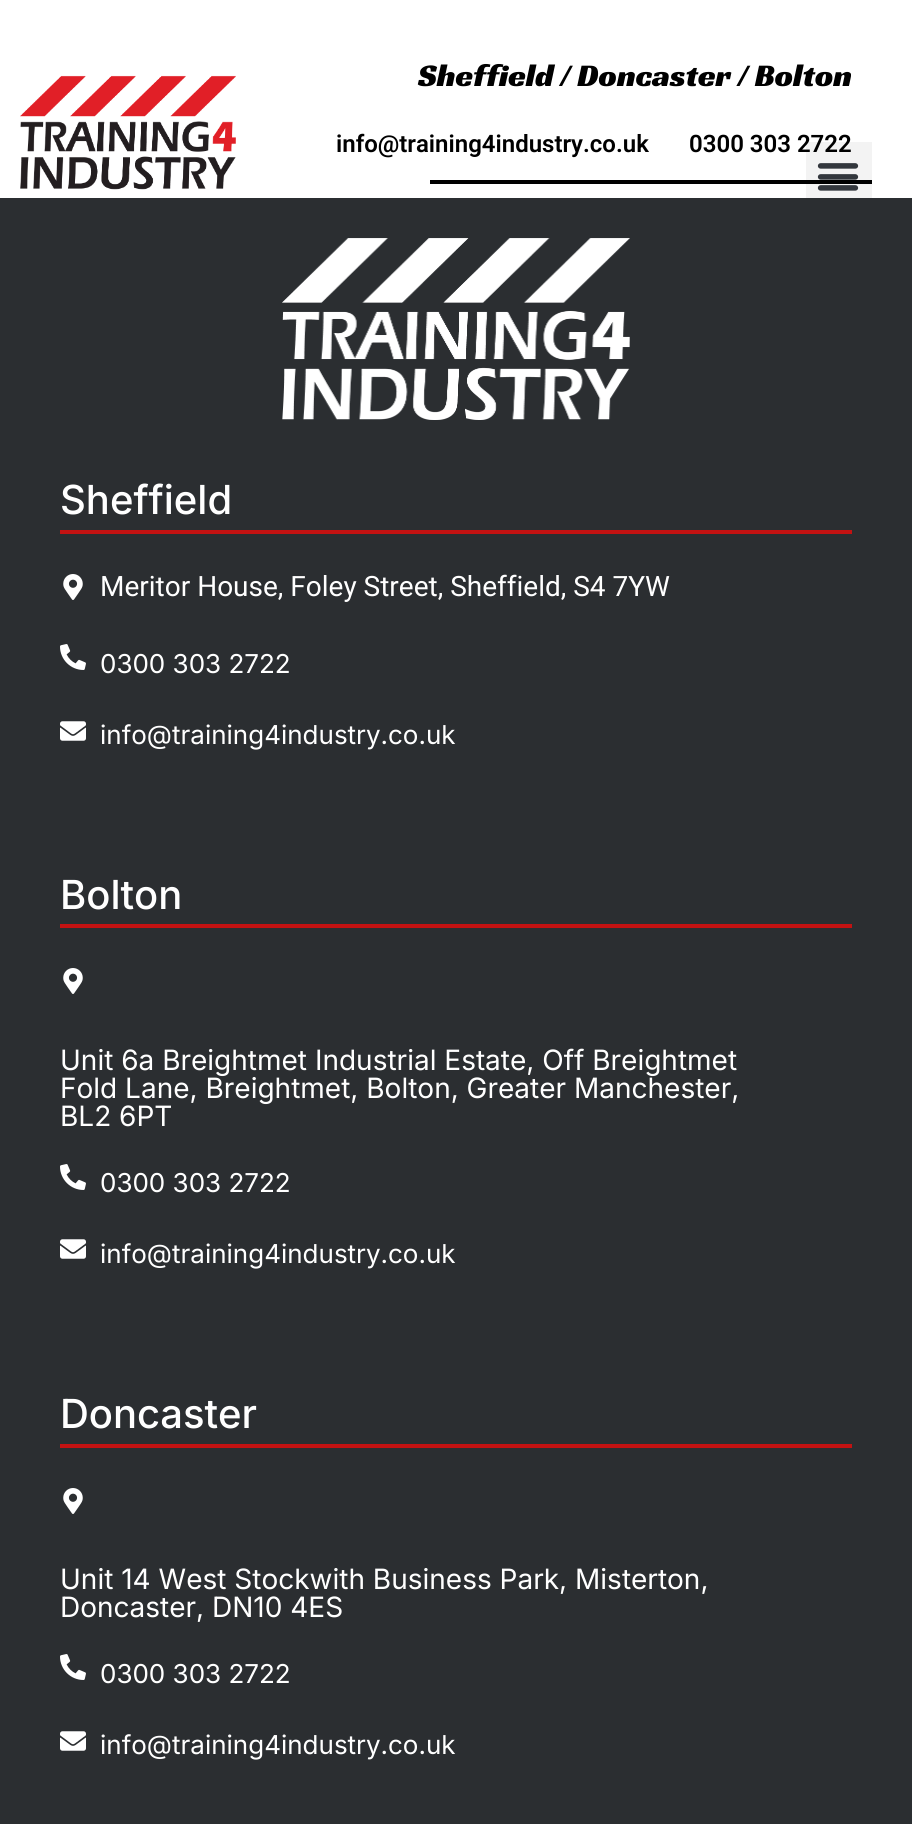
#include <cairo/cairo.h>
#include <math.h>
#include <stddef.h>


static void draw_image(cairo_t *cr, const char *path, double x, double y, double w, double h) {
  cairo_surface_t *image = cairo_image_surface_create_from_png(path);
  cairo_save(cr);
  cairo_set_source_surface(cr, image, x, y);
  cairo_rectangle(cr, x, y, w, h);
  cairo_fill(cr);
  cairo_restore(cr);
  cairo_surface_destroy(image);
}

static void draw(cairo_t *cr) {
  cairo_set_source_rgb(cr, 1, 1, 1);
  cairo_paint(cr);
  draw_image(cr, "images/1.png", 20, 75, 216, 115);
  cairo_set_source_rgb(cr, 0, 0, 0);
  cairo_rectangle(cr, 430, 180, 442, 4);
  cairo_fill(cr);
  cairo_set_source_rgba(cr, 0, 0, 0, 0.05);
  cairo_rectangle(cr, 806, 142, 66, 56);
  cairo_fill(cr);
  draw_image(cr, "images/2.png", 817, 163, 42, 28);
  cairo_set_source_rgb(cr, 43 / 255.0, 46 / 255.0, 49 / 255.0);
  cairo_rectangle(cr, 0, 198, 912, 1626);
  cairo_fill(cr);
  draw_image(cr, "images/3.png", 282, 238, 348, 182);
  cairo_set_source_rgb(cr, 195 / 255.0, 18 / 255.0, 18 / 255.0);
  cairo_rectangle(cr, 60, 530, 792, 4);
  cairo_fill(cr);
  draw_image(cr, "images/4.png", 63, 574, 20, 26);
  draw_image(cr, "images/5.png", 60, 644, 26, 26);
  draw_image(cr, "images/6.png", 60, 721, 26, 20);
  cairo_rectangle(cr, 60, 924, 792, 4);
  cairo_fill(cr);
  draw_image(cr, "images/4.png", 63, 968, 20, 26);
  draw_image(cr, "images/5.png", 60, 1164, 26, 26);
  draw_image(cr, "images/6.png", 60, 1239, 26, 20);
  cairo_rectangle(cr, 60, 1444, 792, 4);
  cairo_fill(cr);
  draw_image(cr, "images/4.png", 63, 1488, 20, 26);
  draw_image(cr, "images/5.png", 60, 1654, 26, 26);
  draw_image(cr, "images/6.png", 60, 1731, 26, 20);
  cairo_select_font_face(cr, "Racing Sans One", CAIRO_FONT_SLANT_NORMAL, CAIRO_FONT_WEIGHT_NORMAL);
  cairo_set_font_size(cr, 32);
  cairo_set_source_rgb(cr, 0, 0, 0);
  cairo_move_to(cr, 418, 86);
  cairo_show_text(cr, "Sheffield / Doncaster / Bolton");
  cairo_select_font_face(cr, "Roboto SemiBold", CAIRO_FONT_SLANT_NORMAL, CAIRO_FONT_WEIGHT_NORMAL);
  cairo_set_font_size(cr, 24);
  cairo_move_to(cr, 336, 152);
  cairo_show_text(cr, "info@training4industry.co.uk");
  cairo_move_to(cr, 689, 152);
  cairo_show_text(cr, "0300 303 2722");
  cairo_select_font_face(cr, "Inter Medium", CAIRO_FONT_SLANT_NORMAL, CAIRO_FONT_WEIGHT_NORMAL);
  cairo_set_font_size(cr, 40);
  cairo_set_source_rgb(cr, 1, 1, 1);
  cairo_move_to(cr, 60, 514);
  cairo_show_text(cr, "Sheffield");
  cairo_select_font_face(cr, "Roboto", CAIRO_FONT_SLANT_NORMAL, CAIRO_FONT_WEIGHT_NORMAL);
  cairo_set_font_size(cr, 28);
  cairo_move_to(cr, 100, 596);
  cairo_show_text(cr, "Meritor House, Foley Street, Sheffield, S4 7YW");
  cairo_select_font_face(cr, "Inter", CAIRO_FONT_SLANT_NORMAL, CAIRO_FONT_WEIGHT_NORMAL);
  cairo_set_font_size(cr, 26);
  cairo_move_to(cr, 100, 673);
  cairo_show_text(cr, "0300 303 2722");
  cairo_move_to(cr, 100, 744);
  cairo_show_text(cr, "info@training4industry.co.uk");
  cairo_select_font_face(cr, "Inter Medium", CAIRO_FONT_SLANT_NORMAL, CAIRO_FONT_WEIGHT_NORMAL);
  cairo_set_font_size(cr, 40);
  cairo_move_to(cr, 60, 909);
  cairo_show_text(cr, "Bolton");
  cairo_select_font_face(cr, "Inter", CAIRO_FONT_SLANT_NORMAL, CAIRO_FONT_WEIGHT_NORMAL);
  cairo_set_font_size(cr, 28);
  cairo_move_to(cr, 60, 1070);
  cairo_show_text(cr, "Unit 6a Breightmet Industrial Estate, Off Breightmet");
  cairo_move_to(cr, 60, 1098);
  cairo_show_text(cr, "Fold Lane, Breightmet, Bolton, Greater Manchester,");
  cairo_move_to(cr, 60, 1126);
  cairo_show_text(cr, "BL2 6PT");
  cairo_set_font_size(cr, 26);
  cairo_move_to(cr, 100, 1192);
  cairo_show_text(cr, "0300 303 2722");
  cairo_move_to(cr, 100, 1263);
  cairo_show_text(cr, "info@training4industry.co.uk");
  cairo_select_font_face(cr, "Inter Medium", CAIRO_FONT_SLANT_NORMAL, CAIRO_FONT_WEIGHT_NORMAL);
  cairo_set_font_size(cr, 40);
  cairo_move_to(cr, 60, 1428);
  cairo_show_text(cr, "Doncaster");
  cairo_select_font_face(cr, "Inter", CAIRO_FONT_SLANT_NORMAL, CAIRO_FONT_WEIGHT_NORMAL);
  cairo_set_font_size(cr, 28);
  cairo_move_to(cr, 60, 1589);
  cairo_show_text(cr, "Unit 14 West Stockwith Business Park, Misterton,");
  cairo_move_to(cr, 60, 1617);
  cairo_show_text(cr, "Doncaster, DN10 4ES");
  cairo_set_font_size(cr, 26);
  cairo_move_to(cr, 100, 1683);
  cairo_show_text(cr, "0300 303 2722");
  cairo_move_to(cr, 100, 1754);
  cairo_show_text(cr, "info@training4industry.co.uk");
}

int main(void) {
  cairo_surface_t *surface = cairo_image_surface_create(CAIRO_FORMAT_RGB24, 912, 1824);
  cairo_t *cr = cairo_create(surface);
  cairo_font_options_t *options = cairo_font_options_create();
  cairo_font_options_set_hint_metrics(options, CAIRO_HINT_METRICS_OFF);
  cairo_font_options_set_hint_style(options, CAIRO_HINT_STYLE_NONE);
  cairo_set_font_options(cr, options);
  cairo_set_miter_limit(cr, 4);
  draw(cr);
  cairo_surface_write_to_png(surface, "out.png");
  cairo_font_options_destroy(options);
  cairo_destroy(cr);
  cairo_surface_destroy(surface);
  return 0;
}
